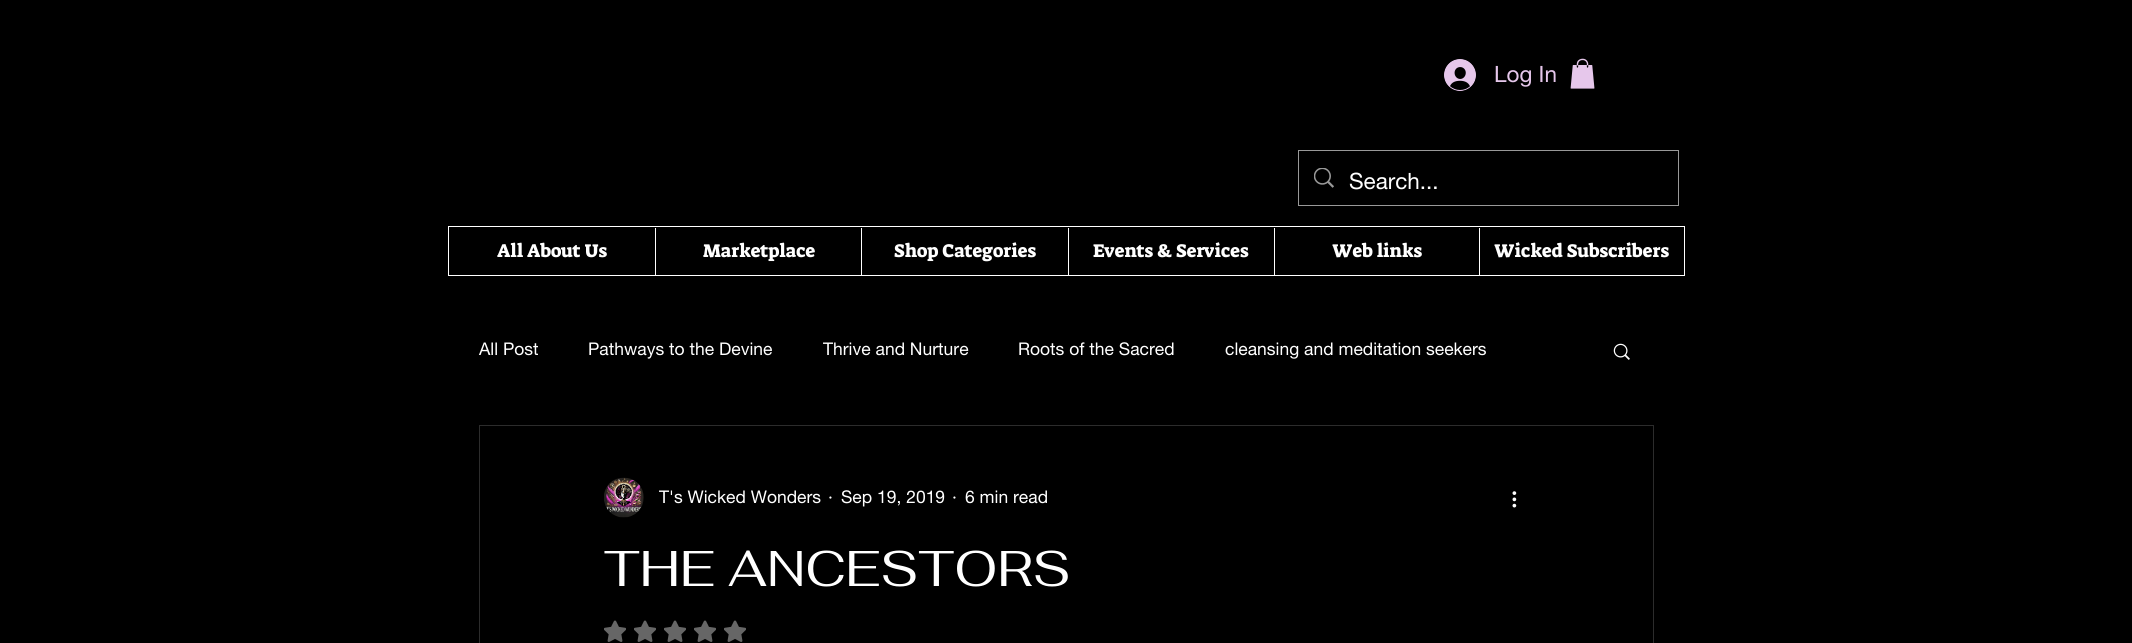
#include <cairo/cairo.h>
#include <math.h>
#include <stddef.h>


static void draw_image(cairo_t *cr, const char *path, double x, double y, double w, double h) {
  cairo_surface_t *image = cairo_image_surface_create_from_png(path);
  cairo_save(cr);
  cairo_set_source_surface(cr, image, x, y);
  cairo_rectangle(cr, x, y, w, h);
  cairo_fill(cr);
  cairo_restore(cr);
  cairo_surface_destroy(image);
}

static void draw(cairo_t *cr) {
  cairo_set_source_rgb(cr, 0, 0, 0);
  cairo_paint(cr);
  draw_image(cr, "images/1.png", 1444, 59, 32, 32);
  draw_image(cr, "images/2.png", 1570, 58, 25, 31);
  cairo_rectangle(cr, 1298.5, 150.5, 380, 55);
  cairo_set_source_rgb(cr, 153 / 255.0, 153 / 255.0, 153 / 255.0);
  cairo_set_line_width(cr, 1);
  cairo_stroke(cr);
  draw_image(cr, "images/3.png", 1314, 168, 20, 20);
  cairo_rectangle(cr, 448.5, 226.5, 1236, 49);
  cairo_set_source_rgb(cr, 1, 1, 1);
  cairo_stroke(cr);
  cairo_rectangle(cr, 655, 228, 1, 47);
  cairo_fill(cr);
  cairo_rectangle(cr, 861, 228, 1, 47);
  cairo_fill(cr);
  cairo_rectangle(cr, 1068, 228, 1, 47);
  cairo_fill(cr);
  cairo_rectangle(cr, 1274, 228, 1, 47);
  cairo_fill(cr);
  cairo_rectangle(cr, 1479, 228, 1, 47);
  cairo_fill(cr);
  draw_image(cr, "images/4.png", 1613, 343, 17, 17);
  cairo_rectangle(cr, 479.5, 425.5, 1174, 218);
  cairo_set_source_rgb(cr, 44 / 255.0, 44 / 255.0, 44 / 255.0);
  cairo_stroke(cr);
  draw_image(cr, "images/5.png", 604, 477, 40, 41);
  draw_image(cr, "images/6.png", 1512, 491, 5, 17);
  draw_image(cr, "images/7.png", 604, 620, 22, 22);
  draw_image(cr, "images/7.png", 634, 620, 22, 22);
  draw_image(cr, "images/7.png", 664, 620, 22, 22);
  draw_image(cr, "images/7.png", 694, 620, 22, 22);
  draw_image(cr, "images/7.png", 724, 620, 22, 22);
  cairo_select_font_face(cr, "helvetica neue", CAIRO_FONT_SLANT_NORMAL, CAIRO_FONT_WEIGHT_NORMAL);
  cairo_set_font_size(cr, 22.5);
  cairo_set_source_rgb(cr, 230 / 255.0, 199 / 255.0, 235 / 255.0);
  cairo_move_to(cr, 1494, 82);
  cairo_show_text(cr, "Log In");
  cairo_set_source_rgb(cr, 1, 1, 1);
  cairo_move_to(cr, 1349, 189);
  cairo_show_text(cr, "Search...");
  cairo_select_font_face(cr, "Suez One", CAIRO_FONT_SLANT_NORMAL, CAIRO_FONT_WEIGHT_NORMAL);
  cairo_set_font_size(cr, 18.75);
  cairo_move_to(cr, 497, 257);
  cairo_show_text(cr, "All About Us");
  cairo_move_to(cr, 703, 257);
  cairo_show_text(cr, "Marketplace");
  cairo_move_to(cr, 894, 257);
  cairo_show_text(cr, "Shop Categories");
  cairo_move_to(cr, 1093, 257);
  cairo_show_text(cr, "Events & Services");
  cairo_move_to(cr, 1332, 257);
  cairo_show_text(cr, "Web links");
  cairo_move_to(cr, 1494, 257);
  cairo_show_text(cr, "Wicked Subscribers");
  cairo_select_font_face(cr, "helvetica neue", CAIRO_FONT_SLANT_NORMAL, CAIRO_FONT_WEIGHT_NORMAL);
  cairo_set_font_size(cr, 17.5);
  cairo_move_to(cr, 479, 355);
  cairo_show_text(cr, "All Post");
  cairo_move_to(cr, 588, 355);
  cairo_show_text(cr, "Pathways to the Devine");
  cairo_move_to(cr, 823, 355);
  cairo_show_text(cr, "Thrive and Nurture");
  cairo_move_to(cr, 1018, 355);
  cairo_show_text(cr, "Roots of the Sacred");
  cairo_move_to(cr, 1225, 355);
  cairo_show_text(cr, "cleansing and meditation seekers");
  cairo_move_to(cr, 659, 503);
  cairo_show_text(cr, "T's Wicked Wonders");
  cairo_move_to(cr, 828, 503);
  cairo_show_text(cr, "·");
  cairo_move_to(cr, 841, 503);
  cairo_show_text(cr, "Sep 19, 2019");
  cairo_move_to(cr, 952, 503);
  cairo_show_text(cr, "·");
  cairo_move_to(cr, 965, 503);
  cairo_show_text(cr, "6 min read");
  cairo_select_font_face(cr, "Fahkwang", CAIRO_FONT_SLANT_NORMAL, CAIRO_FONT_WEIGHT_NORMAL);
  cairo_set_font_size(cr, 50);
  cairo_move_to(cr, 604, 586);
  cairo_show_text(cr, "THE ANCESTORS");
}

int main(void) {
  cairo_surface_t *surface = cairo_image_surface_create(CAIRO_FORMAT_RGB24, 2132, 643);
  cairo_t *cr = cairo_create(surface);
  cairo_font_options_t *options = cairo_font_options_create();
  cairo_font_options_set_hint_metrics(options, CAIRO_HINT_METRICS_OFF);
  cairo_font_options_set_hint_style(options, CAIRO_HINT_STYLE_NONE);
  cairo_set_font_options(cr, options);
  cairo_set_miter_limit(cr, 4);
  draw(cr);
  cairo_surface_write_to_png(surface, "out.png");
  cairo_font_options_destroy(options);
  cairo_destroy(cr);
  cairo_surface_destroy(surface);
  return 0;
}
